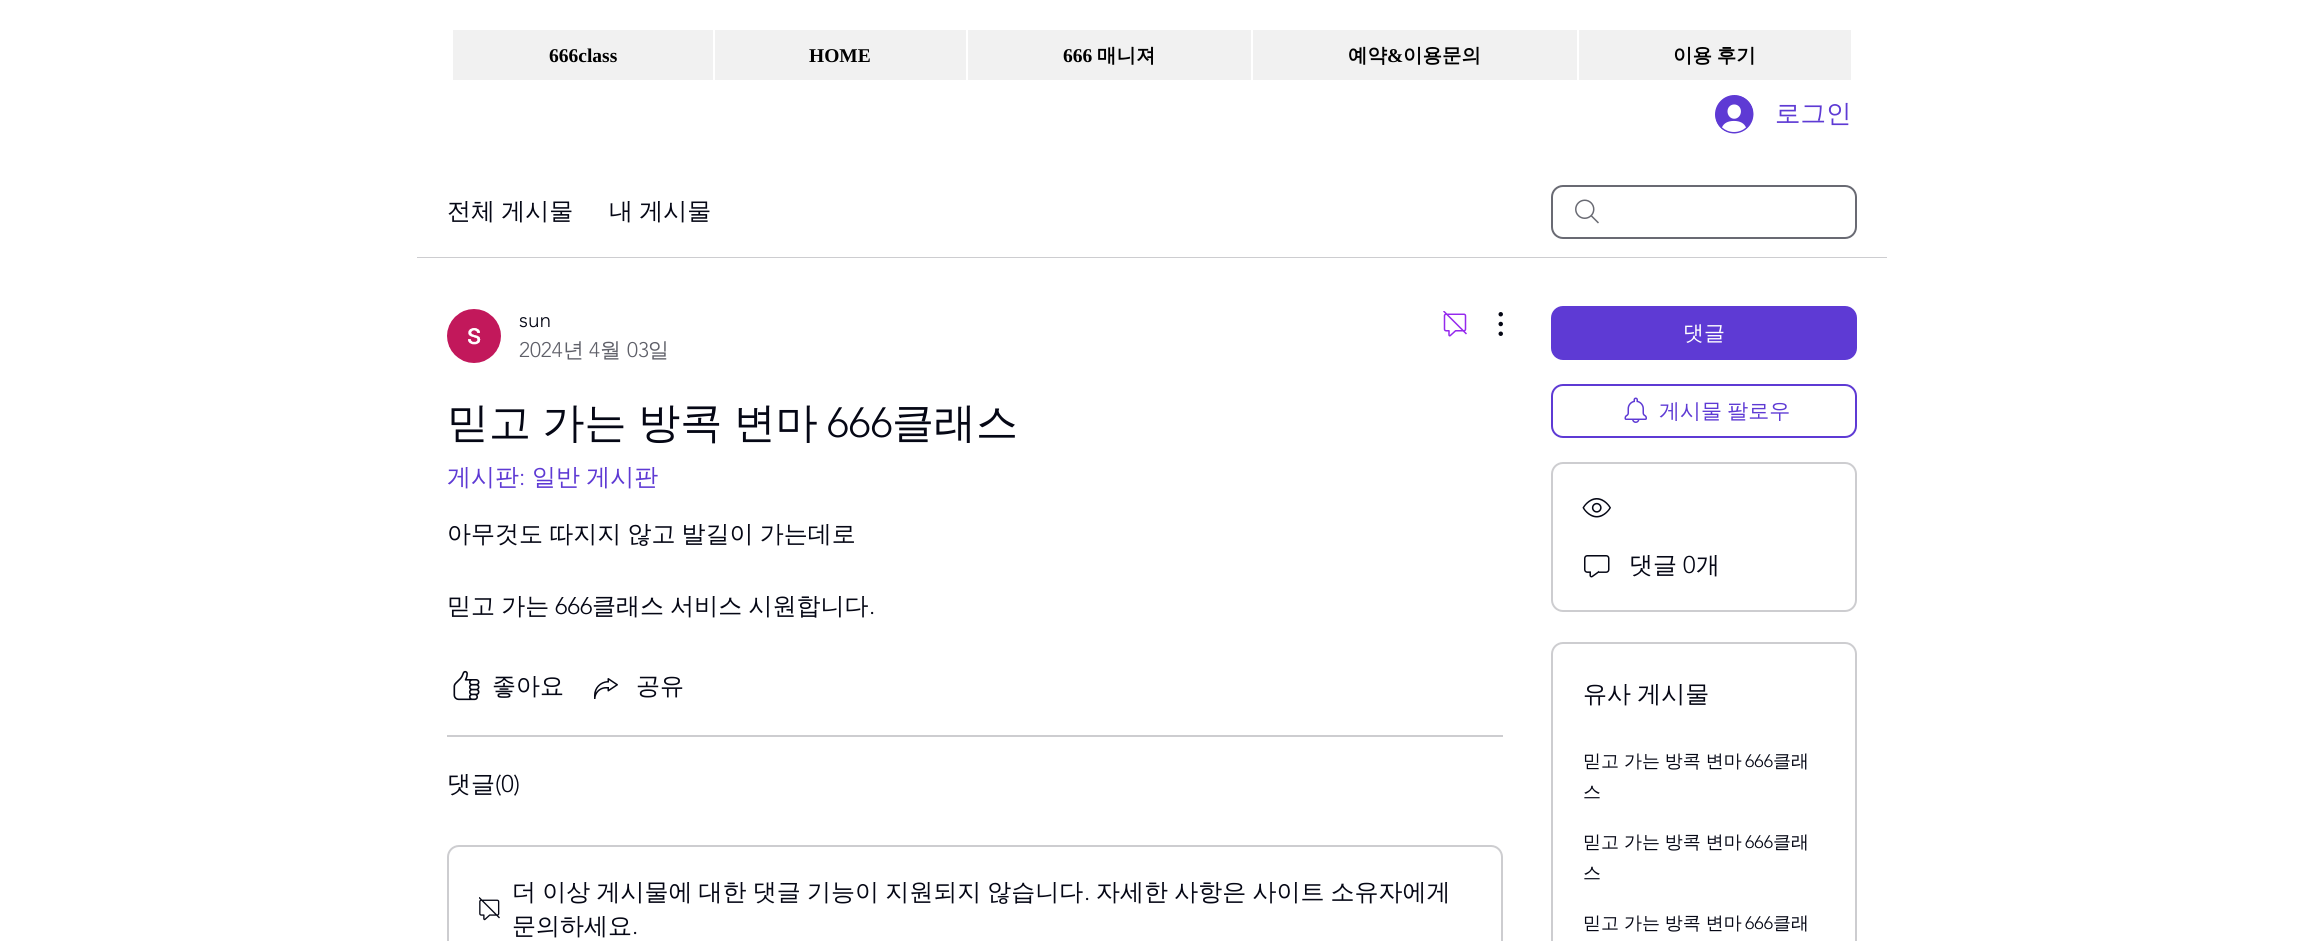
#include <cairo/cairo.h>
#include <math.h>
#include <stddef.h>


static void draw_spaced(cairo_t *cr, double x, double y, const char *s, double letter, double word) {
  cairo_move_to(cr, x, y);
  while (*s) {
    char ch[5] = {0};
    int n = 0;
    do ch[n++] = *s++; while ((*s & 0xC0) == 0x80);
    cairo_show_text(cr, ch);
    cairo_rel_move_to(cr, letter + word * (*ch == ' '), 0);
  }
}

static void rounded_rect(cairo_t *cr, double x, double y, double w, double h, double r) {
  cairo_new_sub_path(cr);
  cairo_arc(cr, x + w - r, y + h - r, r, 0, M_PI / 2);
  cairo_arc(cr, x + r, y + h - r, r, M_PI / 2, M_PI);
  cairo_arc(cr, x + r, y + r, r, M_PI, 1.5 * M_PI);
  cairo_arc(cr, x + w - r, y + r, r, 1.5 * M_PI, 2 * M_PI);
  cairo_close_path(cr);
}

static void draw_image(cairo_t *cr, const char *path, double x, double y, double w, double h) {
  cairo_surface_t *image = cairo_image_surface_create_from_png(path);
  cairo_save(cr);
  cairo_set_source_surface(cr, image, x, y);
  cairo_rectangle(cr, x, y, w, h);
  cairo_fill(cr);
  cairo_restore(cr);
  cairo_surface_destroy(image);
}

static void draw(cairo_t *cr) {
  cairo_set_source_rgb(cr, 1, 1, 1);
  cairo_paint(cr);
  cairo_set_source_rgb(cr, 241 / 255.0, 241 / 255.0, 241 / 255.0);
  cairo_rectangle(cr, 453, 30, 1398, 50);
  cairo_fill(cr);
  cairo_set_source_rgb(cr, 1, 1, 1);
  cairo_rectangle(cr, 713, 30, 2, 50);
  cairo_fill(cr);
  cairo_rectangle(cr, 966, 30, 2, 50);
  cairo_fill(cr);
  cairo_rectangle(cr, 1251, 30, 2, 50);
  cairo_fill(cr);
  cairo_rectangle(cr, 1577, 30, 2, 50);
  cairo_fill(cr);
  draw_image(cr, "images/1.png", 1715, 95, 39, 39);
  cairo_set_source_rgb(cr, 205 / 255.0, 205 / 255.0, 208 / 255.0);
  cairo_rectangle(cr, 417, 257, 1470, 1);
  cairo_fill(cr);
  draw_image(cr, "images/2.png", 1575, 199, 24, 25);
  rounded_rect(cr, 1552, 186, 304, 52, 11);
  cairo_set_source_rgb(cr, 105 / 255.0, 106 / 255.0, 115 / 255.0);
  cairo_stroke(cr);
  draw_image(cr, "images/3.png", 447, 309, 54, 54);
  draw_image(cr, "images/4.png", 1443, 311, 24, 26);
  draw_image(cr, "images/5.png", 1498, 312, 5, 24);
  draw_image(cr, "images/6.png", 453, 670, 27, 31);
  draw_image(cr, "images/7.png", 594, 678, 24, 21);
  cairo_set_source_rgb(cr, 205 / 255.0, 205 / 255.0, 208 / 255.0);
  cairo_rectangle(cr, 447, 735, 1056, 2);
  cairo_fill(cr);
  rounded_rect(cr, 448, 846, 1054, 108, 11);
  cairo_stroke(cr);
  draw_image(cr, "images/8.png", 479, 897, 21, 24);
  cairo_set_source_rgb(cr, 94 / 255.0, 58 / 255.0, 212 / 255.0);
  rounded_rect(cr, 1551, 306, 306, 54, 12);
  cairo_fill(cr);
  rounded_rect(cr, 1552, 385, 304, 52, 11);
  cairo_stroke(cr);
  draw_image(cr, "images/9.png", 1624, 397, 23, 26);
  rounded_rect(cr, 1552, 463, 304, 148, 11);
  cairo_set_source_rgb(cr, 205 / 255.0, 205 / 255.0, 208 / 255.0);
  cairo_stroke(cr);
  draw_image(cr, "images/10.png", 1582, 498, 29, 20);
  draw_image(cr, "images/11.png", 1584, 555, 26, 23);
  rounded_rect(cr, 1552, 643, 304, 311, 11);
  cairo_stroke(cr);
  cairo_select_font_face(cr, "Liberation Serif", CAIRO_FONT_SLANT_NORMAL, CAIRO_FONT_WEIGHT_BOLD);
  cairo_set_font_size(cr, 19.5);
  cairo_set_source_rgb(cr, 0, 0, 0);
  cairo_move_to(cr, 549, 62);
  cairo_show_text(cr, "666class");
  cairo_move_to(cr, 809, 62);
  cairo_show_text(cr, "HOME");
  cairo_move_to(cr, 1063, 62);
  cairo_show_text(cr, "666");
  cairo_select_font_face(cr, "WenQuanYi Zen Hei", CAIRO_FONT_SLANT_NORMAL, CAIRO_FONT_WEIGHT_BOLD);
  cairo_move_to(cr, 1097, 62);
  cairo_show_text(cr, "매니져");
  cairo_move_to(cr, 1348, 62);
  cairo_show_text(cr, "예약");
  cairo_select_font_face(cr, "Liberation Serif", CAIRO_FONT_SLANT_NORMAL, CAIRO_FONT_WEIGHT_BOLD);
  cairo_move_to(cr, 1387, 62);
  cairo_show_text(cr, "&");
  cairo_select_font_face(cr, "WenQuanYi Zen Hei", CAIRO_FONT_SLANT_NORMAL, CAIRO_FONT_WEIGHT_BOLD);
  cairo_move_to(cr, 1403, 62);
  cairo_show_text(cr, "이용문의");
  draw_spaced(cr, 1673, 62, "이용 후기", 0, -1);
  cairo_select_font_face(cr, "WenQuanYi Zen Hei Medium", CAIRO_FONT_SLANT_NORMAL, CAIRO_FONT_WEIGHT_NORMAL);
  cairo_set_font_size(cr, 25.5);
  cairo_set_source_rgb(cr, 94 / 255.0, 58 / 255.0, 212 / 255.0);
  cairo_move_to(cr, 1775, 122);
  cairo_show_text(cr, "로그인");
  cairo_set_font_size(cr, 24);
  cairo_set_source_rgb(cr, 5 / 255.0, 7 / 255.0, 21 / 255.0);
  draw_spaced(cr, 447, 219, "전체 게시물", 0, -1);
  draw_spaced(cr, 609, 219, "내 게시물", 0, -1);
  cairo_select_font_face(cr, "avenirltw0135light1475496 Light", CAIRO_FONT_SLANT_NORMAL, CAIRO_FONT_WEIGHT_NORMAL);
  cairo_set_font_size(cr, 21);
  cairo_move_to(cr, 519, 327);
  cairo_show_text(cr, "sun");
  cairo_set_source_rgb(cr, 95 / 255.0, 96 / 255.0, 105 / 255.0);
  cairo_move_to(cr, 519, 357);
  cairo_show_text(cr, "2024");
  cairo_select_font_face(cr, "WenQuanYi Zen Hei Medium", CAIRO_FONT_SLANT_NORMAL, CAIRO_FONT_WEIGHT_NORMAL);
  cairo_move_to(cr, 563, 357);
  cairo_show_text(cr, "년");
  cairo_select_font_face(cr, "avenirltw0135light1475496 Light", CAIRO_FONT_SLANT_NORMAL, CAIRO_FONT_WEIGHT_NORMAL);
  cairo_move_to(cr, 589, 357);
  cairo_show_text(cr, "4");
  cairo_select_font_face(cr, "WenQuanYi Zen Hei Medium", CAIRO_FONT_SLANT_NORMAL, CAIRO_FONT_WEIGHT_NORMAL);
  cairo_move_to(cr, 600, 357);
  cairo_show_text(cr, "월");
  cairo_select_font_face(cr, "avenirltw0135light1475496 Light", CAIRO_FONT_SLANT_NORMAL, CAIRO_FONT_WEIGHT_NORMAL);
  cairo_move_to(cr, 627, 357);
  cairo_show_text(cr, "03");
  cairo_select_font_face(cr, "WenQuanYi Zen Hei Medium", CAIRO_FONT_SLANT_NORMAL, CAIRO_FONT_WEIGHT_NORMAL);
  cairo_move_to(cr, 648, 357);
  cairo_show_text(cr, "일");
  cairo_set_font_size(cr, 42);
  cairo_set_source_rgb(cr, 5 / 255.0, 7 / 255.0, 21 / 255.0);
  draw_spaced(cr, 447, 437, "믿고 가는 방콕 변마", 0, -1);
  cairo_select_font_face(cr, "avenirltw0135light1475496 Light", CAIRO_FONT_SLANT_NORMAL, CAIRO_FONT_WEIGHT_NORMAL);
  cairo_move_to(cr, 827, 437);
  cairo_show_text(cr, "666");
  cairo_select_font_face(cr, "WenQuanYi Zen Hei Medium", CAIRO_FONT_SLANT_NORMAL, CAIRO_FONT_WEIGHT_NORMAL);
  cairo_move_to(cr, 892, 437);
  cairo_show_text(cr, "클래스");
  cairo_set_font_size(cr, 24);
  cairo_set_source_rgb(cr, 94 / 255.0, 58 / 255.0, 212 / 255.0);
  cairo_move_to(cr, 447, 485);
  cairo_show_text(cr, "게시판");
  cairo_select_font_face(cr, "avenirltw0135light1475496 Light", CAIRO_FONT_SLANT_NORMAL, CAIRO_FONT_WEIGHT_NORMAL);
  cairo_move_to(cr, 519, 485);
  cairo_show_text(cr, ":");
  cairo_select_font_face(cr, "WenQuanYi Zen Hei Medium", CAIRO_FONT_SLANT_NORMAL, CAIRO_FONT_WEIGHT_NORMAL);
  draw_spaced(cr, 532, 485, "일반 게시판", 0, -1);
  cairo_set_source_rgb(cr, 5 / 255.0, 7 / 255.0, 21 / 255.0);
  draw_spaced(cr, 447, 542, "아무것도 따지지 않고 발길이 가는데로", 0, -1);
  draw_spaced(cr, 447, 614, "믿고 가는", 0, -1);
  cairo_select_font_face(cr, "avenirltw0135light1475496 Light", CAIRO_FONT_SLANT_NORMAL, CAIRO_FONT_WEIGHT_NORMAL);
  cairo_move_to(cr, 555, 614);
  cairo_show_text(cr, "666");
  cairo_select_font_face(cr, "WenQuanYi Zen Hei Medium", CAIRO_FONT_SLANT_NORMAL, CAIRO_FONT_WEIGHT_NORMAL);
  draw_spaced(cr, 592, 614, "클래스 서비스 시원합니다", 0, -1);
  cairo_select_font_face(cr, "avenirltw0135light1475496 Light", CAIRO_FONT_SLANT_NORMAL, CAIRO_FONT_WEIGHT_NORMAL);
  cairo_move_to(cr, 869, 614);
  cairo_show_text(cr, ".");
  cairo_select_font_face(cr, "WenQuanYi Zen Hei Medium", CAIRO_FONT_SLANT_NORMAL, CAIRO_FONT_WEIGHT_NORMAL);
  cairo_move_to(cr, 492, 694);
  cairo_show_text(cr, "좋아요");
  cairo_move_to(cr, 636, 694);
  cairo_show_text(cr, "공유");
  cairo_move_to(cr, 447, 792);
  cairo_show_text(cr, "댓글");
  cairo_select_font_face(cr, "avenirltw0135light1475496 Light", CAIRO_FONT_SLANT_NORMAL, CAIRO_FONT_WEIGHT_NORMAL);
  cairo_move_to(cr, 495, 792);
  cairo_show_text(cr, "(0)");
  cairo_select_font_face(cr, "WenQuanYi Zen Hei Medium", CAIRO_FONT_SLANT_NORMAL, CAIRO_FONT_WEIGHT_NORMAL);
  draw_spaced(cr, 512, 900, "더 이상 게시물에 대한 댓글 기능이 지원되지 않습니다", 0, -1);
  cairo_select_font_face(cr, "avenirltw0135light1475496 Light", CAIRO_FONT_SLANT_NORMAL, CAIRO_FONT_WEIGHT_NORMAL);
  cairo_move_to(cr, 1084, 900);
  cairo_show_text(cr, ".");
  cairo_select_font_face(cr, "WenQuanYi Zen Hei Medium", CAIRO_FONT_SLANT_NORMAL, CAIRO_FONT_WEIGHT_NORMAL);
  draw_spaced(cr, 1096, 900, "자세한 사항은 사이트 소유자에게", 0, -1);
  cairo_move_to(cr, 512, 934);
  cairo_show_text(cr, "문의하세요");
  cairo_select_font_face(cr, "avenirltw0135light1475496 Light", CAIRO_FONT_SLANT_NORMAL, CAIRO_FONT_WEIGHT_NORMAL);
  cairo_move_to(cr, 632, 934);
  cairo_show_text(cr, ".");
  cairo_select_font_face(cr, "WenQuanYi Zen Hei Medium", CAIRO_FONT_SLANT_NORMAL, CAIRO_FONT_WEIGHT_NORMAL);
  cairo_set_font_size(cr, 21);
  cairo_set_source_rgb(cr, 1, 1, 1);
  cairo_move_to(cr, 1683, 340);
  cairo_show_text(cr, "댓글");
  cairo_set_source_rgb(cr, 94 / 255.0, 58 / 255.0, 212 / 255.0);
  draw_spaced(cr, 1659, 418, "게시물 팔로우", 0, -1);
  cairo_set_font_size(cr, 24);
  cairo_set_source_rgb(cr, 5 / 255.0, 7 / 255.0, 21 / 255.0);
  cairo_move_to(cr, 1629, 573);
  cairo_show_text(cr, "댓글");
  cairo_select_font_face(cr, "avenirltw0135light1475496 Light", CAIRO_FONT_SLANT_NORMAL, CAIRO_FONT_WEIGHT_NORMAL);
  cairo_move_to(cr, 1683, 573);
  cairo_show_text(cr, "0");
  cairo_select_font_face(cr, "WenQuanYi Zen Hei Medium", CAIRO_FONT_SLANT_NORMAL, CAIRO_FONT_WEIGHT_NORMAL);
  cairo_move_to(cr, 1696, 573);
  cairo_show_text(cr, "개");
  draw_spaced(cr, 1583, 702, "유사 게시물", 0, -1);
  cairo_set_font_size(cr, 18);
  draw_spaced(cr, 1583, 767, "믿고 가는 방콕 변마", 0, -0.5);
  cairo_select_font_face(cr, "avenirltw0135light1475496 Light", CAIRO_FONT_SLANT_NORMAL, CAIRO_FONT_WEIGHT_NORMAL);
  cairo_move_to(cr, 1745, 767);
  cairo_show_text(cr, "666");
  cairo_select_font_face(cr, "WenQuanYi Zen Hei Medium", CAIRO_FONT_SLANT_NORMAL, CAIRO_FONT_WEIGHT_NORMAL);
  cairo_move_to(cr, 1773, 767);
  cairo_show_text(cr, "클래");
  cairo_move_to(cr, 1583, 798);
  cairo_show_text(cr, "스");
  draw_spaced(cr, 1583, 848, "믿고 가는 방콕 변마", 0, -0.5);
  cairo_select_font_face(cr, "avenirltw0135light1475496 Light", CAIRO_FONT_SLANT_NORMAL, CAIRO_FONT_WEIGHT_NORMAL);
  cairo_move_to(cr, 1745, 848);
  cairo_show_text(cr, "666");
  cairo_select_font_face(cr, "WenQuanYi Zen Hei Medium", CAIRO_FONT_SLANT_NORMAL, CAIRO_FONT_WEIGHT_NORMAL);
  cairo_move_to(cr, 1773, 848);
  cairo_show_text(cr, "클래");
  cairo_move_to(cr, 1583, 879);
  cairo_show_text(cr, "스");
  draw_spaced(cr, 1583, 929, "믿고 가는 방콕 변마", 0, -0.5);
  cairo_select_font_face(cr, "avenirltw0135light1475496 Light", CAIRO_FONT_SLANT_NORMAL, CAIRO_FONT_WEIGHT_NORMAL);
  cairo_move_to(cr, 1745, 929);
  cairo_show_text(cr, "666");
  cairo_select_font_face(cr, "WenQuanYi Zen Hei Medium", CAIRO_FONT_SLANT_NORMAL, CAIRO_FONT_WEIGHT_NORMAL);
  cairo_move_to(cr, 1773, 929);
  cairo_show_text(cr, "클래");
}

int main(void) {
  cairo_surface_t *surface = cairo_image_surface_create(CAIRO_FORMAT_RGB24, 2303, 941);
  cairo_t *cr = cairo_create(surface);
  cairo_font_options_t *options = cairo_font_options_create();
  cairo_font_options_set_hint_metrics(options, CAIRO_HINT_METRICS_OFF);
  cairo_font_options_set_hint_style(options, CAIRO_HINT_STYLE_NONE);
  cairo_set_font_options(cr, options);
  cairo_set_miter_limit(cr, 4);
  draw(cr);
  cairo_surface_write_to_png(surface, "out.png");
  cairo_font_options_destroy(options);
  cairo_destroy(cr);
  cairo_surface_destroy(surface);
  return 0;
}
